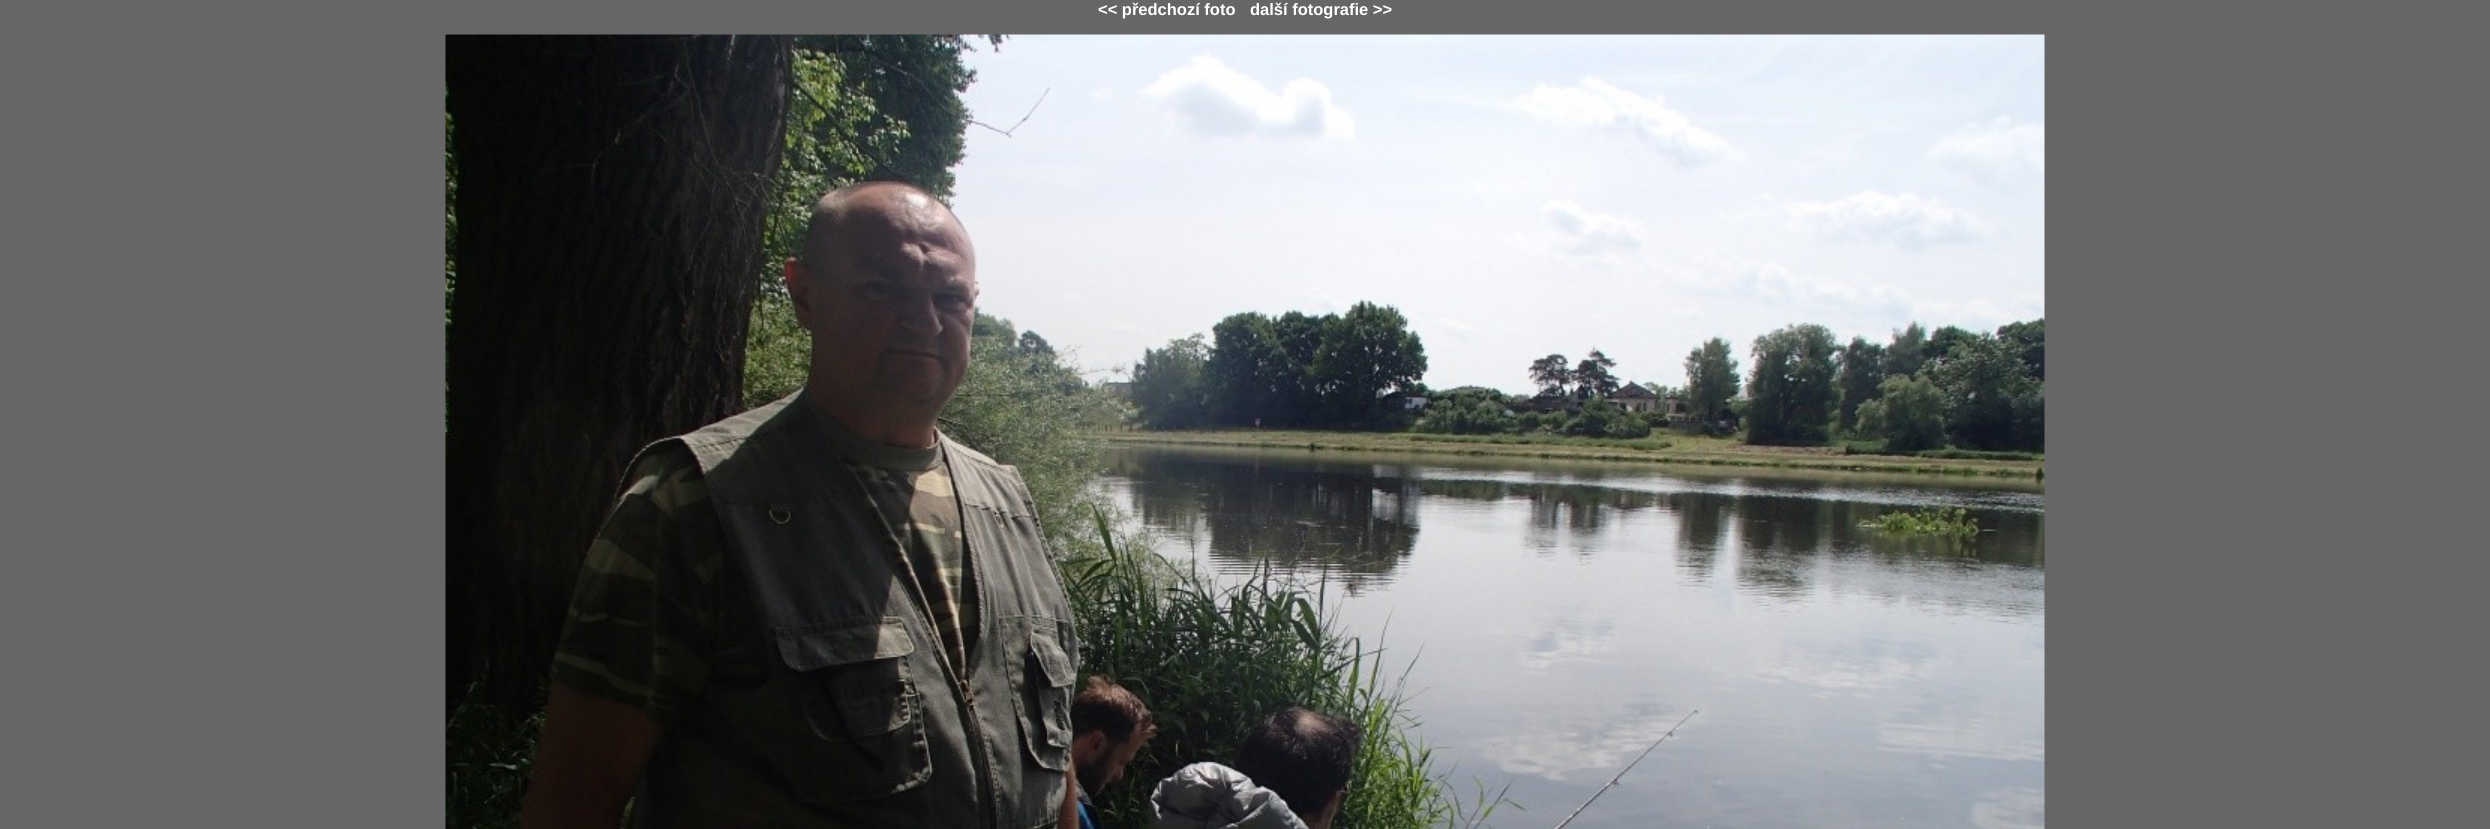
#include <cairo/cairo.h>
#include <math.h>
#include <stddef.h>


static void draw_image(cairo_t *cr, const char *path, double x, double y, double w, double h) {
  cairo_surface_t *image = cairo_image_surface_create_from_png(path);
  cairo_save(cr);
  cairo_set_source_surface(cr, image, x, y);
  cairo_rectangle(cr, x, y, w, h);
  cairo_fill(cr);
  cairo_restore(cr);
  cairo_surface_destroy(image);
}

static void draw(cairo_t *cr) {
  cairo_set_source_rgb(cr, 102 / 255.0, 102 / 255.0, 102 / 255.0);
  cairo_paint(cr);
  draw_image(cr, "images/1.png", 445, 34, 1600, 795);
  cairo_select_font_face(cr, "Liberation Sans", CAIRO_FONT_SLANT_NORMAL, CAIRO_FONT_WEIGHT_BOLD);
  cairo_set_font_size(cr, 16.5);
  cairo_set_source_rgb(cr, 1, 1, 1);
  cairo_move_to(cr, 1098, 15);
  cairo_show_text(cr, "<< předchozí foto");
  cairo_move_to(cr, 1250, 15);
  cairo_show_text(cr, "další fotografie >>");
}

int main(void) {
  cairo_surface_t *surface = cairo_image_surface_create(CAIRO_FORMAT_RGB24, 2490, 829);
  cairo_t *cr = cairo_create(surface);
  cairo_font_options_t *options = cairo_font_options_create();
  cairo_font_options_set_hint_metrics(options, CAIRO_HINT_METRICS_OFF);
  cairo_font_options_set_hint_style(options, CAIRO_HINT_STYLE_NONE);
  cairo_set_font_options(cr, options);
  cairo_set_miter_limit(cr, 4);
  draw(cr);
  cairo_surface_write_to_png(surface, "out.png");
  cairo_font_options_destroy(options);
  cairo_destroy(cr);
  cairo_surface_destroy(surface);
  return 0;
}
